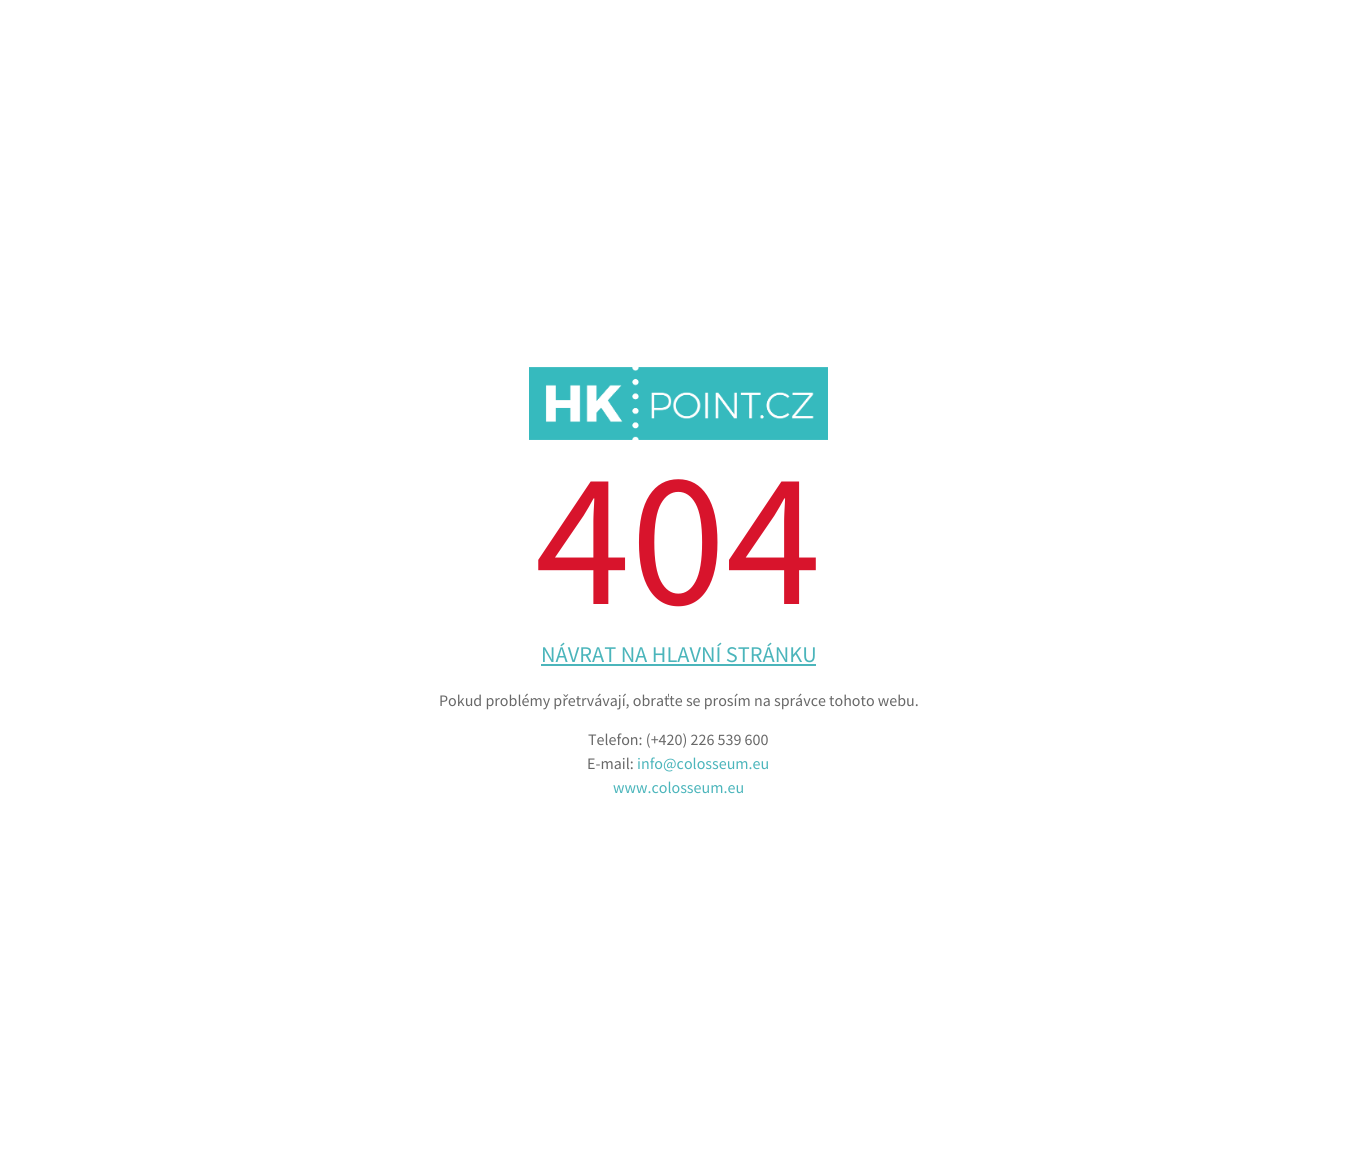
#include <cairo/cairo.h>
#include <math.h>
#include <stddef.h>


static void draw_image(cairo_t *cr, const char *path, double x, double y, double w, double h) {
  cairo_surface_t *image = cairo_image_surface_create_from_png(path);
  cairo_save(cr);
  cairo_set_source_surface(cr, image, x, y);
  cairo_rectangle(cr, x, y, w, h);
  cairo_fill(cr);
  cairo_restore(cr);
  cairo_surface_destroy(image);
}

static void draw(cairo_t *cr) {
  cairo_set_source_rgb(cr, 1, 1, 1);
  cairo_paint(cr);
  draw_image(cr, "images/1.png", 529, 367, 299, 73);
  cairo_set_source_rgb(cr, 75 / 255.0, 181 / 255.0, 187 / 255.0);
  cairo_rectangle(cr, 541, 664, 275, 2);
  cairo_fill(cr);
  cairo_select_font_face(cr, "Source Sans Pro", CAIRO_FONT_SLANT_NORMAL, CAIRO_FONT_WEIGHT_NORMAL);
  cairo_set_font_size(cr, 192);
  cairo_set_source_rgb(cr, 216 / 255.0, 20 / 255.0, 44 / 255.0);
  cairo_move_to(cr, 535, 604);
  cairo_show_text(cr, "404");
  cairo_set_font_size(cr, 22.4);
  cairo_set_source_rgb(cr, 75 / 255.0, 181 / 255.0, 187 / 255.0);
  cairo_move_to(cr, 541, 662);
  cairo_show_text(cr, "NÁVRAT NA HLAVNÍ STRÁNKU");
  cairo_set_font_size(cr, 16);
  cairo_set_source_rgb(cr, 104 / 255.0, 104 / 255.0, 104 / 255.0);
  cairo_move_to(cr, 439, 706);
  cairo_show_text(cr, "Pokud problémy přetrvávají, obraťte se prosím na správce tohoto webu.");
  cairo_move_to(cr, 588, 745);
  cairo_show_text(cr, "Telefon: (+420) 226 539 600");
  cairo_move_to(cr, 587, 769);
  cairo_show_text(cr, "E-mail:");
  cairo_set_source_rgb(cr, 75 / 255.0, 181 / 255.0, 187 / 255.0);
  cairo_move_to(cr, 637, 769);
  cairo_show_text(cr, "info@colosseum.eu");
  cairo_move_to(cr, 613, 793);
  cairo_show_text(cr, "www.colosseum.eu");
}

int main(void) {
  cairo_surface_t *surface = cairo_image_surface_create(CAIRO_FORMAT_RGB24, 1357, 1161);
  cairo_t *cr = cairo_create(surface);
  cairo_font_options_t *options = cairo_font_options_create();
  cairo_font_options_set_hint_metrics(options, CAIRO_HINT_METRICS_OFF);
  cairo_font_options_set_hint_style(options, CAIRO_HINT_STYLE_NONE);
  cairo_set_font_options(cr, options);
  cairo_set_miter_limit(cr, 4);
  draw(cr);
  cairo_surface_write_to_png(surface, "out.png");
  cairo_font_options_destroy(options);
  cairo_destroy(cr);
  cairo_surface_destroy(surface);
  return 0;
}
